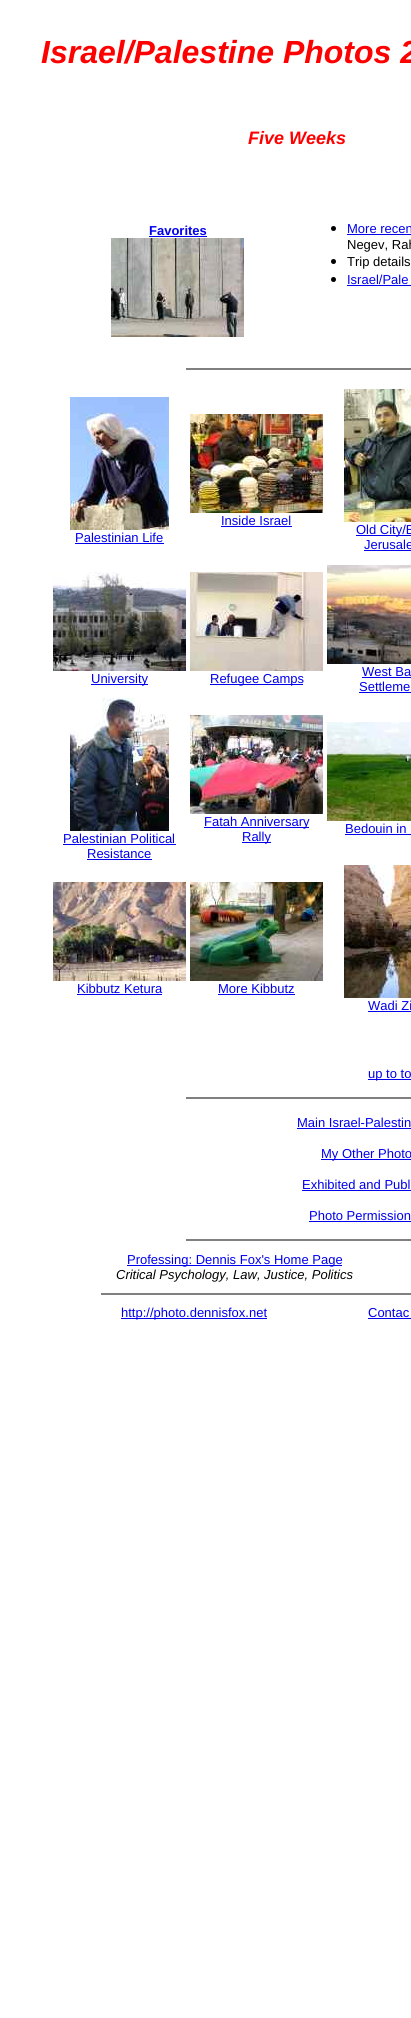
#include <cairo/cairo.h>
#include <math.h>
#include <stddef.h>


static void draw_image(cairo_t *cr, const char *path, double x, double y, double w, double h) {
  cairo_surface_t *image = cairo_image_surface_create_from_png(path);
  cairo_save(cr);
  cairo_set_source_surface(cr, image, x, y);
  cairo_rectangle(cr, x, y, w, h);
  cairo_fill(cr);
  cairo_restore(cr);
  cairo_surface_destroy(image);
}

static void draw(cairo_t *cr) {
  cairo_set_source_rgb(cr, 1, 1, 1);
  cairo_paint(cr);
  cairo_set_source_rgb(cr, 0, 0, 238 / 255.0);
  cairo_rectangle(cr, 149, 236, 58, 1);
  cairo_fill(cr);
  draw_image(cr, "images/1.png", 111, 238, 133, 99);
  cairo_set_source_rgb(cr, 0, 0, 0);
  cairo_arc(cr, 333.5, 228.5, 2.5, 0, 2 * M_PI);
  cairo_fill(cr);
  cairo_set_source_rgb(cr, 0, 0, 238 / 255.0);
  cairo_rectangle(cr, 347, 234, 64, 1);
  cairo_fill(cr);
  cairo_set_source_rgb(cr, 0, 0, 0);
  cairo_arc(cr, 333.5, 261.5, 2.5, 0, 2 * M_PI);
  cairo_fill(cr);
  cairo_arc(cr, 333.5, 279.5, 2.5, 0, 2 * M_PI);
  cairo_fill(cr);
  cairo_set_source_rgb(cr, 0, 0, 238 / 255.0);
  cairo_rectangle(cr, 347, 285, 64, 1);
  cairo_fill(cr);
  cairo_set_source_rgb(cr, 128 / 255.0, 128 / 255.0, 128 / 255.0);
  cairo_rectangle(cr, 186, 368, 225, 2);
  cairo_fill(cr);
  draw_image(cr, "images/2.png", 190, 414, 133, 99);
  cairo_set_source_rgb(cr, 0, 0, 238 / 255.0);
  cairo_rectangle(cr, 221, 526, 71, 1);
  cairo_fill(cr);
  draw_image(cr, "images/3.png", 70, 397, 99, 133);
  cairo_rectangle(cr, 75, 543, 89, 1);
  cairo_fill(cr);
  draw_image(cr, "images/4.png", 344, 389, 67, 133);
  cairo_rectangle(cr, 356, 535, 55, 1);
  cairo_fill(cr);
  cairo_rectangle(cr, 364, 550, 47, 1);
  cairo_fill(cr);
  draw_image(cr, "images/5.png", 53, 572, 133, 99);
  cairo_rectangle(cr, 91, 684, 57, 1);
  cairo_fill(cr);
  draw_image(cr, "images/6.png", 190, 572, 133, 99);
  cairo_rectangle(cr, 210, 684, 93, 1);
  cairo_fill(cr);
  draw_image(cr, "images/7.png", 327, 565, 84, 99);
  cairo_rectangle(cr, 362, 677, 49, 1);
  cairo_fill(cr);
  cairo_rectangle(cr, 359, 692, 52, 1);
  cairo_fill(cr);
  draw_image(cr, "images/8.png", 190, 715, 133, 99);
  cairo_rectangle(cr, 204, 827, 105, 1);
  cairo_fill(cr);
  cairo_rectangle(cr, 242, 842, 29, 1);
  cairo_fill(cr);
  draw_image(cr, "images/9.png", 327, 722, 84, 99);
  cairo_rectangle(cr, 345, 834, 66, 1);
  cairo_fill(cr);
  draw_image(cr, "images/10.png", 70, 698, 99, 133);
  cairo_rectangle(cr, 63, 844, 113, 1);
  cairo_fill(cr);
  cairo_rectangle(cr, 87, 859, 65, 1);
  cairo_fill(cr);
  draw_image(cr, "images/11.png", 53, 882, 133, 99);
  cairo_rectangle(cr, 77, 994, 85, 1);
  cairo_fill(cr);
  draw_image(cr, "images/12.png", 190, 882, 133, 99);
  cairo_rectangle(cr, 218, 994, 77, 1);
  cairo_fill(cr);
  draw_image(cr, "images/13.png", 344, 865, 67, 133);
  cairo_rectangle(cr, 368, 1011, 43, 1);
  cairo_fill(cr);
  cairo_rectangle(cr, 368, 1079, 43, 1);
  cairo_fill(cr);
  cairo_set_source_rgb(cr, 128 / 255.0, 128 / 255.0, 128 / 255.0);
  cairo_rectangle(cr, 186, 1097, 225, 2);
  cairo_fill(cr);
  cairo_set_source_rgb(cr, 0, 0, 238 / 255.0);
  cairo_rectangle(cr, 297, 1128, 114, 1);
  cairo_fill(cr);
  cairo_rectangle(cr, 321, 1159, 90, 1);
  cairo_fill(cr);
  cairo_rectangle(cr, 302, 1190, 109, 1);
  cairo_fill(cr);
  cairo_rectangle(cr, 309, 1221, 102, 1);
  cairo_fill(cr);
  cairo_set_source_rgb(cr, 128 / 255.0, 128 / 255.0, 128 / 255.0);
  cairo_rectangle(cr, 186, 1239, 225, 2);
  cairo_fill(cr);
  cairo_set_source_rgb(cr, 0, 0, 238 / 255.0);
  cairo_rectangle(cr, 127, 1265, 215, 1);
  cairo_fill(cr);
  cairo_set_source_rgb(cr, 128 / 255.0, 128 / 255.0, 128 / 255.0);
  cairo_rectangle(cr, 101, 1293, 310, 2);
  cairo_fill(cr);
  cairo_set_source_rgb(cr, 0, 0, 238 / 255.0);
  cairo_rectangle(cr, 121, 1318, 146, 1);
  cairo_fill(cr);
  cairo_rectangle(cr, 368, 1318, 43, 1);
  cairo_fill(cr);
  cairo_select_font_face(cr, "Liberation Sans", CAIRO_FONT_SLANT_ITALIC, CAIRO_FONT_WEIGHT_BOLD);
  cairo_set_font_size(cr, 32);
  cairo_set_source_rgb(cr, 1, 0, 0);
  cairo_move_to(cr, 41, 63);
  cairo_show_text(cr, "Israel/Palestine Photos 2");
  cairo_set_font_size(cr, 18);
  cairo_move_to(cr, 248, 144);
  cairo_show_text(cr, "Five Weeks");
  cairo_select_font_face(cr, "Liberation Sans", CAIRO_FONT_SLANT_NORMAL, CAIRO_FONT_WEIGHT_BOLD);
  cairo_set_font_size(cr, 13);
  cairo_set_source_rgb(cr, 0, 0, 238 / 255.0);
  cairo_move_to(cr, 149, 235);
  cairo_show_text(cr, "Favorites");
  cairo_select_font_face(cr, "Liberation Sans", CAIRO_FONT_SLANT_NORMAL, CAIRO_FONT_WEIGHT_NORMAL);
  cairo_move_to(cr, 347, 233);
  cairo_show_text(cr, "More recen");
  cairo_set_source_rgb(cr, 0, 0, 0);
  cairo_move_to(cr, 347, 249);
  cairo_show_text(cr, "Negev, Rah");
  cairo_move_to(cr, 347, 266);
  cairo_show_text(cr, "Trip details");
  cairo_set_source_rgb(cr, 0, 0, 238 / 255.0);
  cairo_move_to(cr, 347, 284);
  cairo_show_text(cr, "Israel/Pale");
  cairo_move_to(cr, 221, 525);
  cairo_show_text(cr, "Inside Israel");
  cairo_move_to(cr, 75, 542);
  cairo_show_text(cr, "Palestinian Life");
  cairo_move_to(cr, 356, 534);
  cairo_show_text(cr, "Old City/E");
  cairo_move_to(cr, 364, 549);
  cairo_show_text(cr, "Jerusale");
  cairo_move_to(cr, 91, 683);
  cairo_show_text(cr, "University");
  cairo_move_to(cr, 210, 683);
  cairo_show_text(cr, "Refugee Camps");
  cairo_move_to(cr, 362, 676);
  cairo_show_text(cr, "West Ba");
  cairo_move_to(cr, 359, 691);
  cairo_show_text(cr, "Settleme");
  cairo_move_to(cr, 204, 826);
  cairo_show_text(cr, "Fatah Anniversary");
  cairo_move_to(cr, 242, 841);
  cairo_show_text(cr, "Rally");
  cairo_move_to(cr, 345, 833);
  cairo_show_text(cr, "Bedouin in");
  cairo_move_to(cr, 63, 843);
  cairo_show_text(cr, "Palestinian Political");
  cairo_move_to(cr, 87, 858);
  cairo_show_text(cr, "Resistance");
  cairo_move_to(cr, 77, 993);
  cairo_show_text(cr, "Kibbutz Ketura");
  cairo_move_to(cr, 218, 993);
  cairo_show_text(cr, "More Kibbutz");
  cairo_move_to(cr, 368, 1010);
  cairo_show_text(cr, "Wadi Zi");
  cairo_move_to(cr, 368, 1078);
  cairo_show_text(cr, "up to to");
  cairo_move_to(cr, 297, 1127);
  cairo_show_text(cr, "Main Israel-Palestin");
  cairo_move_to(cr, 321, 1158);
  cairo_show_text(cr, "My Other Photo");
  cairo_move_to(cr, 302, 1189);
  cairo_show_text(cr, "Exhibited and Publ");
  cairo_move_to(cr, 309, 1220);
  cairo_show_text(cr, "Photo Permission");
  cairo_move_to(cr, 127, 1264);
  cairo_show_text(cr, "Professing: Dennis Fox's Home Page");
  cairo_select_font_face(cr, "Liberation Sans", CAIRO_FONT_SLANT_ITALIC, CAIRO_FONT_WEIGHT_NORMAL);
  cairo_set_source_rgb(cr, 0, 0, 0);
  cairo_move_to(cr, 116, 1279);
  cairo_show_text(cr, "Critical Psychology, Law, Justice, Politics");
  cairo_select_font_face(cr, "Liberation Sans", CAIRO_FONT_SLANT_NORMAL, CAIRO_FONT_WEIGHT_NORMAL);
  cairo_set_source_rgb(cr, 0, 0, 238 / 255.0);
  cairo_move_to(cr, 121, 1317);
  cairo_show_text(cr, "http://photo.dennisfox.net");
  cairo_move_to(cr, 368, 1317);
  cairo_show_text(cr, "Contac");
}

int main(void) {
  cairo_surface_t *surface = cairo_image_surface_create(CAIRO_FORMAT_RGB24, 411, 2018);
  cairo_t *cr = cairo_create(surface);
  cairo_font_options_t *options = cairo_font_options_create();
  cairo_font_options_set_hint_metrics(options, CAIRO_HINT_METRICS_OFF);
  cairo_font_options_set_hint_style(options, CAIRO_HINT_STYLE_NONE);
  cairo_set_font_options(cr, options);
  cairo_set_miter_limit(cr, 4);
  draw(cr);
  cairo_surface_write_to_png(surface, "out.png");
  cairo_font_options_destroy(options);
  cairo_destroy(cr);
  cairo_surface_destroy(surface);
  return 0;
}
